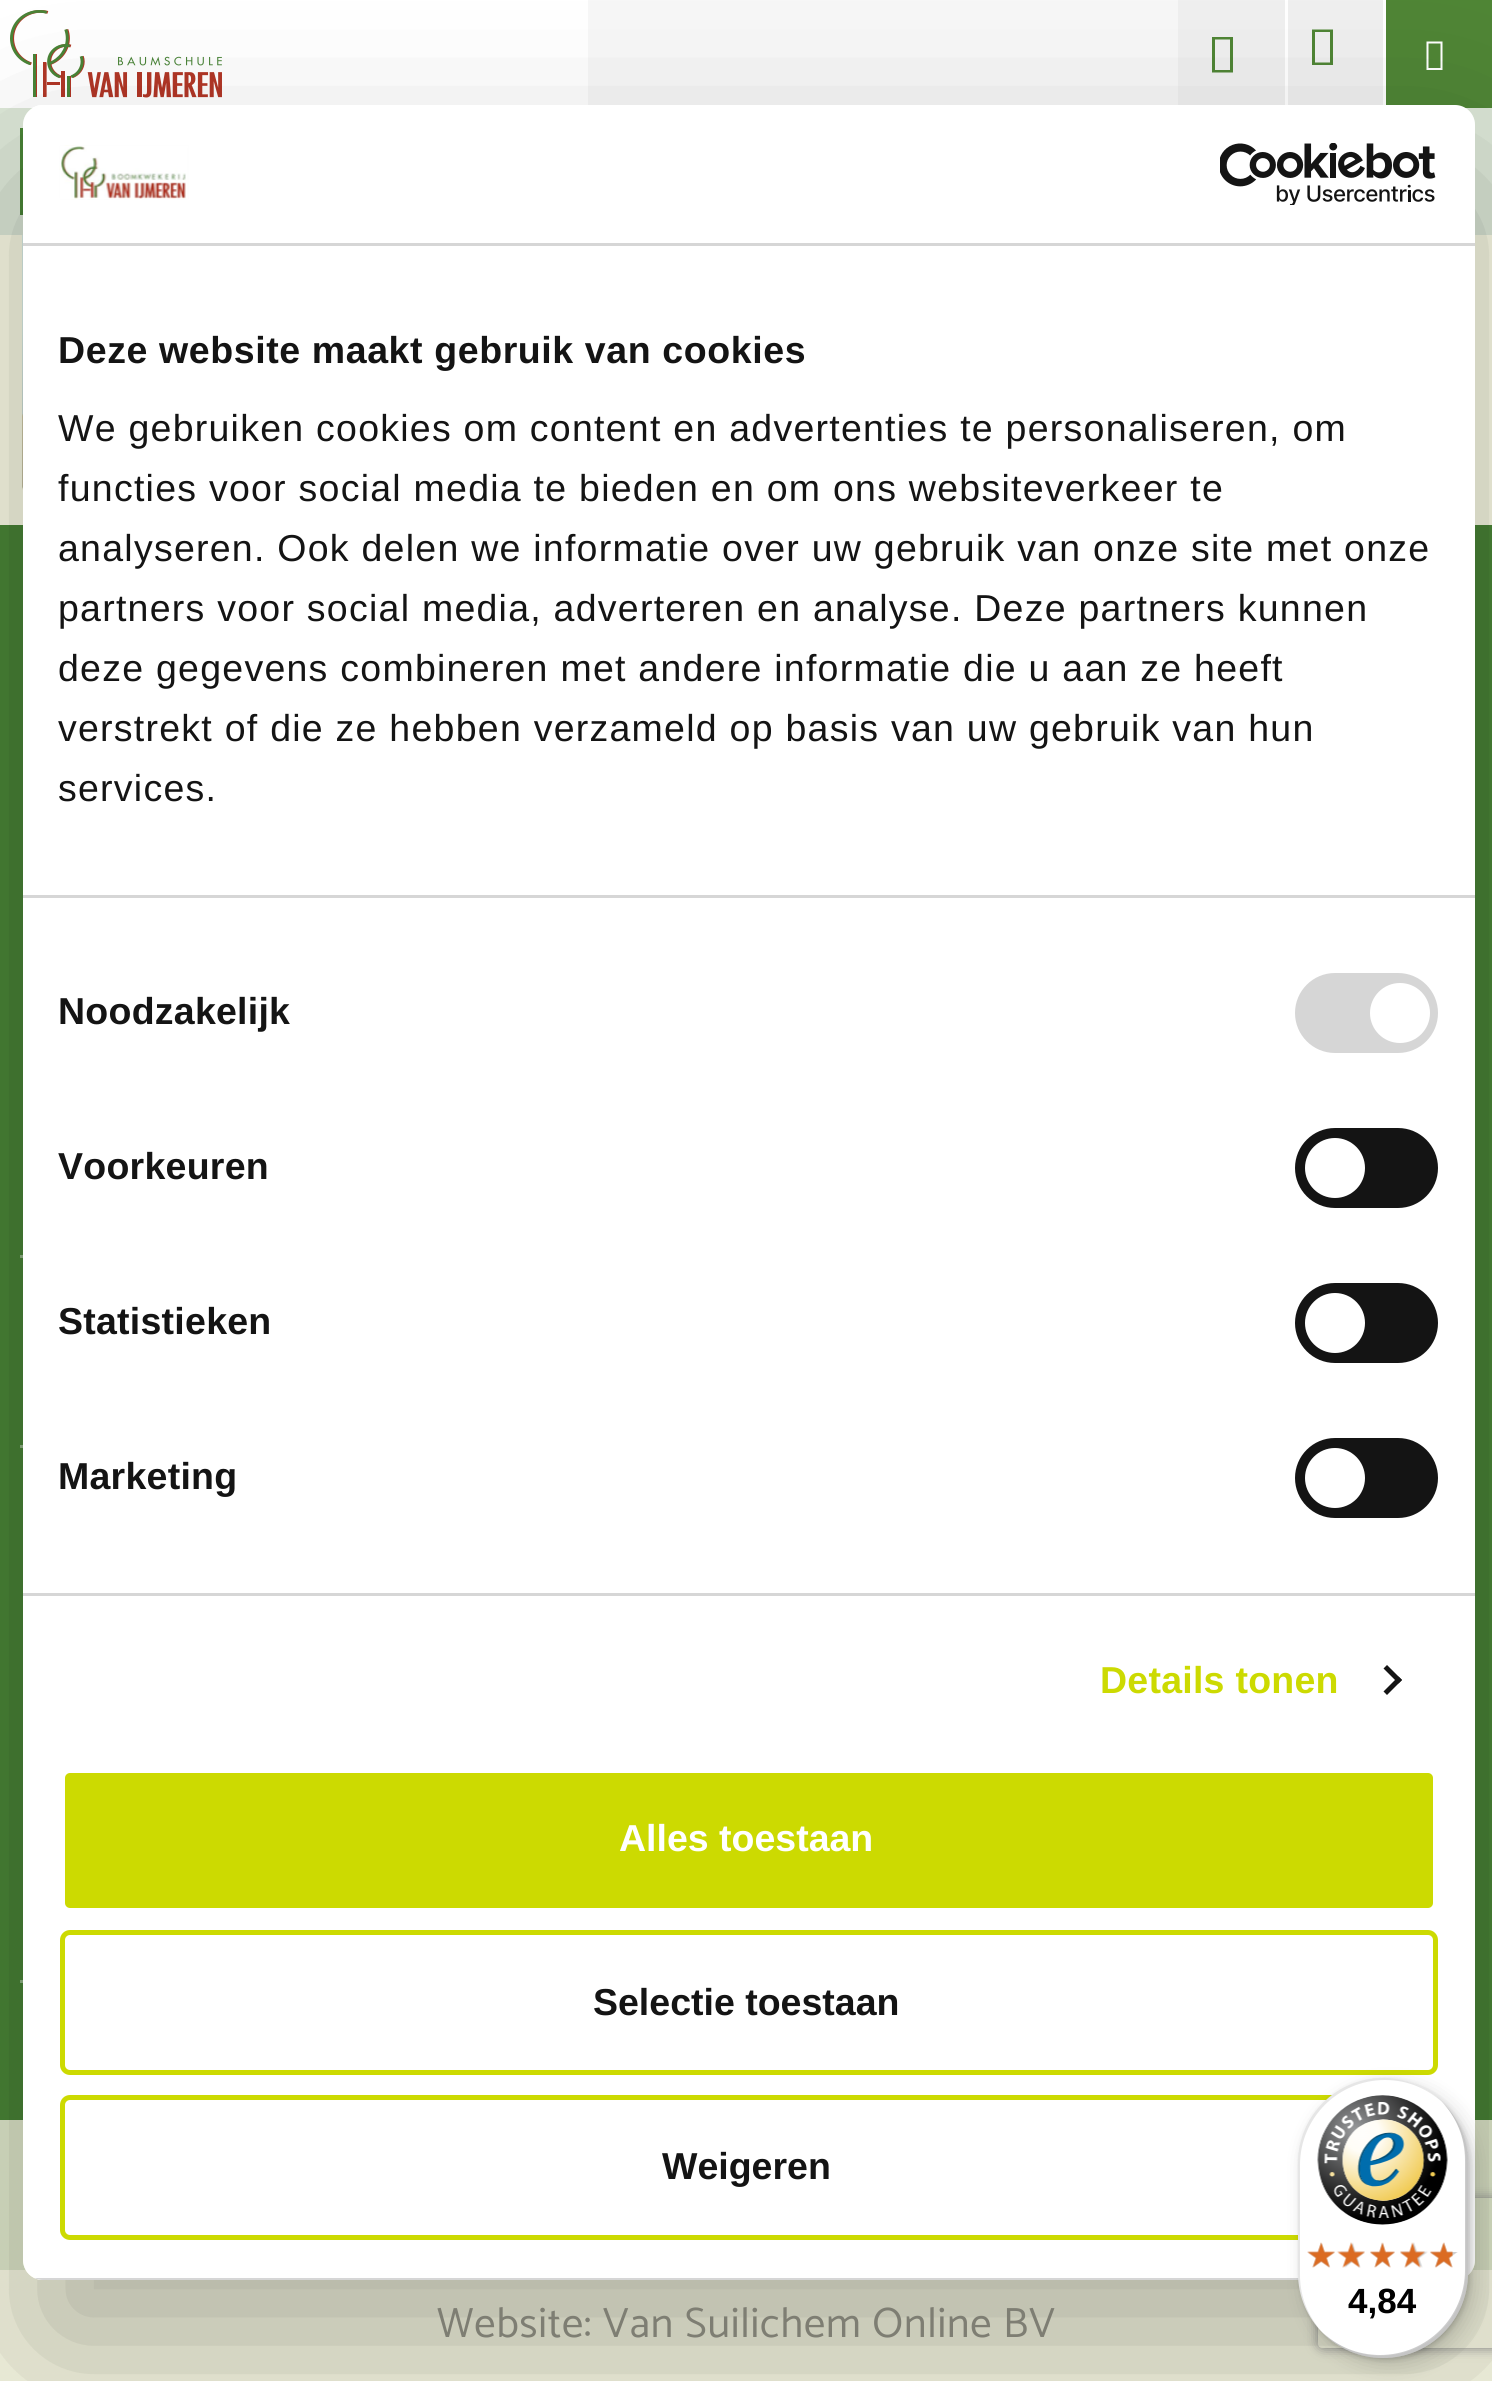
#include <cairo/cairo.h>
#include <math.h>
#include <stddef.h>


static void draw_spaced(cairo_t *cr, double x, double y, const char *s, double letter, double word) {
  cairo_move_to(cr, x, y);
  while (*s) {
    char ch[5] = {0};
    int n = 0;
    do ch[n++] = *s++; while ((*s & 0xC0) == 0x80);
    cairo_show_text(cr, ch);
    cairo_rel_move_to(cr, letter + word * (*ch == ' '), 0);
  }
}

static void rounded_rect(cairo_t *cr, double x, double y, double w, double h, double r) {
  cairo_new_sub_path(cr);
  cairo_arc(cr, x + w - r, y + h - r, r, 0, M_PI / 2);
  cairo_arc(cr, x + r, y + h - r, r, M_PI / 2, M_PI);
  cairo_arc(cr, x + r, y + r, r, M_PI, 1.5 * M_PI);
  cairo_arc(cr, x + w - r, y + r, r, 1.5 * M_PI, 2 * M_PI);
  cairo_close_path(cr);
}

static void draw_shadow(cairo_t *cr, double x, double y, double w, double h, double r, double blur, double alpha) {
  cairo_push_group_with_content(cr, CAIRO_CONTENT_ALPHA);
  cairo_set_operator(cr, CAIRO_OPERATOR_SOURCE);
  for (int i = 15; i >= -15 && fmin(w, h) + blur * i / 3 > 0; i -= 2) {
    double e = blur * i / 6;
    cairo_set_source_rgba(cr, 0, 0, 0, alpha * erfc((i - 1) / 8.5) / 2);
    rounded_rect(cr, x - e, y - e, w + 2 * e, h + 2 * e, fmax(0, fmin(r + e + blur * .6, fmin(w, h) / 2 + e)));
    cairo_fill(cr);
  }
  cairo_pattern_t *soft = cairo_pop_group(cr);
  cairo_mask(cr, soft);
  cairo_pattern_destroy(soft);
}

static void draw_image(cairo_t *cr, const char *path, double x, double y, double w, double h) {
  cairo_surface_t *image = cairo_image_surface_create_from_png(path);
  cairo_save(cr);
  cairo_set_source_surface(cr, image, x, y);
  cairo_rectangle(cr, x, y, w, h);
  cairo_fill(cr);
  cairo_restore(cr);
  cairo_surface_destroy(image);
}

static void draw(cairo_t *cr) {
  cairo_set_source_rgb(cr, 250 / 255.0, 251 / 255.0, 229 / 255.0);
  cairo_paint(cr);
  cairo_set_source_rgb(cr, 247 / 255.0, 247 / 255.0, 247 / 255.0);
  cairo_rectangle(cr, 588, 0, 590, 105);
  cairo_fill(cr);
  cairo_set_source_rgb(cr, 1, 1, 1);
  cairo_rectangle(cr, 0, 0, 588, 108);
  cairo_fill(cr);
  draw_image(cr, "images/14.png", 10, 10, 212, 88);
  cairo_set_source_rgb(cr, 239 / 255.0, 239 / 255.0, 239 / 255.0);
  cairo_rectangle(cr, 1178, 0, 107, 105);
  cairo_fill(cr);
  cairo_set_source_rgb(cr, 79 / 255.0, 133 / 255.0, 53 / 255.0);
  cairo_new_path(cr);
  cairo_move_to(cr, 1212, 72.5);
  cairo_line_to(cr, 1212, 37);
  cairo_line_to(cr, 1233, 37);
  cairo_line_to(cr, 1233, 72.5);
  cairo_close_path(cr);
  cairo_move_to(cr, 1215, 70);
  cairo_line_to(cr, 1230, 70);
  cairo_line_to(cr, 1230, 39.5);
  cairo_line_to(cr, 1215, 39.5);
  cairo_close_path(cr);
  cairo_fill(cr);
  cairo_set_source_rgb(cr, 239 / 255.0, 239 / 255.0, 239 / 255.0);
  cairo_rectangle(cr, 1288, 0, 95, 105);
  cairo_fill(cr);
  cairo_set_source_rgb(cr, 1, 1, 1);
  cairo_rectangle(cr, 1285, 0, 3, 108);
  cairo_fill(cr);
  cairo_set_source_rgb(cr, 79 / 255.0, 133 / 255.0, 53 / 255.0);
  cairo_new_path(cr);
  cairo_move_to(cr, 1312, 65);
  cairo_line_to(cr, 1312, 29.5);
  cairo_line_to(cr, 1333, 29.5);
  cairo_line_to(cr, 1333, 65);
  cairo_close_path(cr);
  cairo_move_to(cr, 1315, 62.5);
  cairo_line_to(cr, 1330, 62.5);
  cairo_line_to(cr, 1330, 32);
  cairo_line_to(cr, 1315, 32);
  cairo_close_path(cr);
  cairo_fill(cr);
  cairo_rectangle(cr, 1386, 0, 106, 108);
  cairo_fill(cr);
  cairo_set_source_rgb(cr, 1, 1, 1);
  cairo_rectangle(cr, 1383, 0, 3, 108);
  cairo_fill(cr);
  cairo_new_path(cr);
  cairo_move_to(cr, 1426.5, 70);
  cairo_line_to(cr, 1426.5, 41.5);
  cairo_line_to(cr, 1442.5, 41.5);
  cairo_line_to(cr, 1442.5, 70);
  cairo_close_path(cr);
  cairo_move_to(cr, 1428.5, 68);
  cairo_line_to(cr, 1440.5, 68);
  cairo_line_to(cr, 1440.5, 43.5);
  cairo_line_to(cr, 1428.5, 43.5);
  cairo_close_path(cr);
  cairo_fill(cr);
  cairo_set_source_rgb(cr, 220 / 255.0, 231 / 255.0, 215 / 255.0);
  cairo_rectangle(cr, 0, 108, 1492, 127);
  cairo_fill(cr);
  cairo_rectangle(cr, 21.5, 129.5, 1450, 84);
  cairo_set_source_rgb(cr, 73 / 255.0, 132 / 255.0, 54 / 255.0);
  cairo_set_line_width(cr, 3);
  cairo_stroke(cr);
  draw_image(cr, "images/15.png", 22, 235, 1, 255);
  cairo_rectangle(cr, 0, 525, 1492, 1595);
  cairo_fill(cr);
  cairo_set_source_rgb(cr, 146 / 255.0, 181 / 255.0, 134 / 255.0);
  cairo_rectangle(cr, 20, 1255, 3, 3);
  cairo_fill(cr);
  cairo_rectangle(cr, 20, 1445, 3, 3);
  cairo_fill(cr);
  cairo_rectangle(cr, 20, 1980, 3, 3);
  cairo_fill(cr);
  cairo_set_source_rgb(cr, 224 / 255.0, 233 / 255.0, 203 / 255.0);
  cairo_rectangle(cr, 0, 2120, 1492, 150);
  cairo_fill(cr);
  cairo_save(cr);
  cairo_set_fill_rule(cr, CAIRO_FILL_RULE_EVEN_ODD);
  cairo_new_path(cr);
  cairo_move_to(cr, 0, 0);
  cairo_line_to(cr, 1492, 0);
  cairo_line_to(cr, 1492, 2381);
  cairo_line_to(cr, 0, 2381);
  cairo_close_path(cr);
  cairo_move_to(cr, 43, 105);
  cairo_line_to(cr, 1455, 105);
  cairo_curve_to(cr, 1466, 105, 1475, 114, 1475, 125);
  cairo_line_to(cr, 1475, 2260);
  cairo_curve_to(cr, 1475, 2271, 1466, 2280, 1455, 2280);
  cairo_line_to(cr, 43, 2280);
  cairo_curve_to(cr, 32, 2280, 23, 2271, 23, 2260);
  cairo_line_to(cr, 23, 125);
  cairo_curve_to(cr, 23, 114, 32, 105, 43, 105);
  cairo_close_path(cr);
  cairo_clip(cr);
  cairo_set_source_rgb(cr, 0, 0, 0);
  draw_shadow(cr, 23, 185, 1452, 2175, 20, 85, 0.3);
  cairo_restore(cr);
  cairo_save(cr);
  cairo_set_fill_rule(cr, CAIRO_FILL_RULE_EVEN_ODD);
  cairo_new_path(cr);
  cairo_move_to(cr, 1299, 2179);
  cairo_line_to(cr, 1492, 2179);
  cairo_line_to(cr, 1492, 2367);
  cairo_line_to(cr, 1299, 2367);
  cairo_close_path(cr);
  cairo_move_to(cr, 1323, 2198);
  cairo_line_to(cr, 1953, 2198);
  cairo_curve_to(cr, 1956, 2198, 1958, 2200, 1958, 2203);
  cairo_line_to(cr, 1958, 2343);
  cairo_curve_to(cr, 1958, 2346, 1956, 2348, 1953, 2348);
  cairo_line_to(cr, 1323, 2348);
  cairo_curve_to(cr, 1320, 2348, 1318, 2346, 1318, 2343);
  cairo_line_to(cr, 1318, 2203);
  cairo_curve_to(cr, 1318, 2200, 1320, 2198, 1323, 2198);
  cairo_close_path(cr);
  cairo_clip(cr);
  cairo_set_source_rgb(cr, 128 / 255.0, 128 / 255.0, 128 / 255.0);
  draw_shadow(cr, 1318, 2198, 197, 150, 5, 6, 1);
  cairo_restore(cr);
  cairo_set_source_rgb(cr, 1, 1, 1);
  rounded_rect(cr, 23, 105, 1452, 2175, 20);
  cairo_fill(cr);
  cairo_set_source_rgb(cr, 214 / 255.0, 214 / 255.0, 214 / 255.0);
  cairo_rectangle(cr, 23, 243, 1452, 3);
  cairo_fill(cr);
  draw_image(cr, "images/1.png", 59, 145, 130, 55);
  draw_image(cr, "images/2.png", 1220, 143, 216, 62);
  cairo_rectangle(cr, 23, 895, 1452, 3);
  cairo_fill(cr);
  cairo_rectangle(cr, 23, 1593, 1452, 3);
  cairo_fill(cr);
  rounded_rect(cr, 1295, 973, 143, 80, 40);
  cairo_fill(cr);
  cairo_set_source_rgb(cr, 1, 1, 1);
  cairo_arc(cr, 1400, 1013, 30, 0, 2 * M_PI);
  cairo_fill(cr);
  cairo_set_source_rgb(cr, 20 / 255.0, 20 / 255.0, 20 / 255.0);
  rounded_rect(cr, 1295, 1128, 143, 80, 40);
  cairo_fill(cr);
  cairo_set_source_rgb(cr, 1, 1, 1);
  cairo_arc(cr, 1335, 1168, 30, 0, 2 * M_PI);
  cairo_fill(cr);
  cairo_set_source_rgb(cr, 20 / 255.0, 20 / 255.0, 20 / 255.0);
  rounded_rect(cr, 1295, 1283, 143, 80, 40);
  cairo_fill(cr);
  cairo_set_source_rgb(cr, 1, 1, 1);
  cairo_arc(cr, 1335, 1323, 30, 0, 2 * M_PI);
  cairo_fill(cr);
  cairo_set_source_rgb(cr, 20 / 255.0, 20 / 255.0, 20 / 255.0);
  rounded_rect(cr, 1295, 1438, 143, 80, 40);
  cairo_fill(cr);
  cairo_set_source_rgb(cr, 1, 1, 1);
  cairo_arc(cr, 1335, 1478, 30, 0, 2 * M_PI);
  cairo_fill(cr);
  cairo_set_source_rgb(cr, 20 / 255.0, 20 / 255.0, 20 / 255.0);
  cairo_new_path(cr);
  cairo_move_to(cr, 1387, 1665);
  cairo_line_to(cr, 1402, 1680);
  cairo_line_to(cr, 1398.5, 1683.5);
  cairo_line_to(cr, 1383.5, 1668.5);
  cairo_close_path(cr);
  cairo_fill(cr);
  cairo_new_path(cr);
  cairo_move_to(cr, 1398.5, 1676.5);
  cairo_line_to(cr, 1402, 1680);
  cairo_line_to(cr, 1387, 1695);
  cairo_line_to(cr, 1383.5, 1691.5);
  cairo_close_path(cr);
  cairo_fill(cr);
  cairo_save(cr);
  rounded_rect(cr, 23, 105, 1452, 2175, 20);
  cairo_clip(cr);
  cairo_set_source_rgb(cr, 214 / 255.0, 214 / 255.0, 214 / 255.0);
  cairo_rectangle(cr, 34, 2278, 1265, 2);
  cairo_fill(cr);
  cairo_restore(cr);
  cairo_set_source_rgb(cr, 204 / 255.0, 218 / 255.0, 1 / 255.0);
  rounded_rect(cr, 62.5, 1770.5, 1373, 140, 7.5);
  cairo_fill_preserve(cr);
  cairo_set_source_rgb(cr, 1, 1, 1);
  cairo_set_line_width(cr, 5);
  cairo_stroke(cr);
  rounded_rect(cr, 62.5, 1932.5, 1373, 140, 7.5);
  cairo_set_source_rgb(cr, 204 / 255.0, 218 / 255.0, 1 / 255.0);
  cairo_stroke(cr);
  rounded_rect(cr, 62.5, 2097.5, 1373, 140, 7.5);
  cairo_stroke(cr);
  cairo_set_source_rgb(cr, 0, 0, 0);
  draw_shadow(cr, 1305, 2085, 170, 280, 85, 10, 0.15);
  draw_shadow(cr, 1300, 2080, 170, 280, 85, 2.5, 0.15);
  cairo_set_source_rgb(cr, 1, 1, 1);
  rounded_rect(cr, 1298, 2078, 170, 280, 85);
  cairo_fill(cr);
  cairo_set_source_rgba(cr, 0, 0, 0, 0.1);
  cairo_new_path(cr);
  cairo_move_to(cr, 1385, 2080);
  cairo_curve_to(cr, 1408, 2080, 1428, 2089, 1443, 2103);
  cairo_curve_to(cr, 1428, 2088, 1407, 2078, 1383, 2078);
  cairo_curve_to(cr, 1336, 2078, 1298, 2116, 1298, 2163);
  cairo_line_to(cr, 1298, 2273);
  cairo_curve_to(cr, 1298, 2297, 1308, 2318, 1323, 2333);
  cairo_curve_to(cr, 1309, 2318, 1300, 2298, 1300, 2275);
  cairo_line_to(cr, 1300, 2165);
  cairo_curve_to(cr, 1300, 2118, 1338, 2080, 1385, 2080);
  cairo_close_path(cr);
  cairo_fill(cr);
  cairo_set_source_rgba(cr, 0, 0, 0, 0.2);
  cairo_new_path(cr);
  cairo_move_to(cr, 1322, 2332);
  cairo_curve_to(cr, 1337, 2348, 1359, 2358, 1383, 2358);
  cairo_curve_to(cr, 1430, 2358, 1468, 2320, 1468, 2273);
  cairo_line_to(cr, 1468, 2163);
  cairo_curve_to(cr, 1468, 2139, 1458, 2117, 1442, 2102);
  cairo_curve_to(cr, 1456, 2117, 1465, 2137, 1465, 2160);
  cairo_line_to(cr, 1465, 2270);
  cairo_curve_to(cr, 1465, 2317, 1427, 2355, 1380, 2355);
  cairo_curve_to(cr, 1357, 2355, 1337, 2346, 1322, 2332);
  cairo_close_path(cr);
  cairo_fill(cr);
  cairo_set_source_rgba(cr, 50 / 255.0, 50 / 255.0, 50 / 255.0, 0.2);
  cairo_new_path(cr);
  cairo_move_to(cr, 1323, 2333);
  cairo_curve_to(cr, 1338, 2348, 1359, 2358, 1383, 2358);
  cairo_curve_to(cr, 1430, 2358, 1468, 2320, 1468, 2273);
  cairo_line_to(cr, 1468, 2163);
  cairo_curve_to(cr, 1468, 2139, 1458, 2118, 1443, 2103);
  cairo_curve_to(cr, 1457, 2118, 1466, 2138, 1466, 2161);
  cairo_line_to(cr, 1466, 2271);
  cairo_curve_to(cr, 1466, 2318, 1428, 2356, 1381, 2356);
  cairo_curve_to(cr, 1358, 2356, 1338, 2347, 1323, 2333);
  cairo_close_path(cr);
  cairo_fill(cr);
  cairo_set_source_rgba(cr, 1, 1, 1, 0.3);
  cairo_new_path(cr);
  cairo_move_to(cr, 1323, 2333);
  cairo_curve_to(cr, 1338, 2348, 1359, 2358, 1383, 2358);
  cairo_curve_to(cr, 1430, 2358, 1468, 2320, 1468, 2273);
  cairo_line_to(cr, 1468, 2163);
  cairo_curve_to(cr, 1468, 2139, 1458, 2118, 1443, 2103);
  cairo_curve_to(cr, 1457, 2118, 1466, 2138, 1466, 2161);
  cairo_line_to(cr, 1466, 2271);
  cairo_curve_to(cr, 1466, 2318, 1428, 2356, 1381, 2356);
  cairo_curve_to(cr, 1358, 2356, 1338, 2347, 1323, 2333);
  cairo_close_path(cr);
  cairo_fill(cr);
  draw_image(cr, "images/3.png", 1317, 2095, 131, 130);
  draw_image(cr, "images/4.png", 1307, 2243, 28, 24);
  draw_image(cr, "images/5.png", 1340, 2242, 25, 26);
  draw_image(cr, "images/6.png", 1370, 2243, 25, 24);
  draw_image(cr, "images/7.png", 1400, 2242, 28, 26);
  draw_image(cr, "images/8.png", 1430, 2243, 28, 24);
  draw_image(cr, "images/9.png", 1307, 2242, 28, 26);
  draw_image(cr, "images/10.png", 1337, 2242, 28, 26);
  draw_image(cr, "images/11.png", 1370, 2242, 25, 26);
  draw_image(cr, "images/12.png", 1400, 2242, 25, 26);
  draw_image(cr, "images/13.png", 1430, 2242, 23, 26);
  cairo_select_font_face(cr, "Liberation Sans", CAIRO_FONT_SLANT_NORMAL, CAIRO_FONT_WEIGHT_BOLD);
  cairo_set_font_size(cr, 37.5);
  cairo_set_source_rgb(cr, 20 / 255.0, 20 / 255.0, 20 / 255.0);
  draw_spaced(cr, 58, 363, "Deze website maakt gebruik van cookies", 0.6, 0);
  cairo_select_font_face(cr, "Liberation Sans", CAIRO_FONT_SLANT_NORMAL, CAIRO_FONT_WEIGHT_NORMAL);
  draw_spaced(cr, 58, 441, "We gebruiken cookies om content en advertenties te personaliseren, om", 1.25, 0);
  draw_spaced(cr, 58, 501, "functies voor social media te bieden en om ons websiteverkeer te", 1.25, 0);
  draw_spaced(cr, 58, 561, "analyseren. Ook delen we informatie over uw gebruik van onze site met onze", 1.25, 0);
  draw_spaced(cr, 58, 621, "partners voor social media, adverteren en analyse. Deze partners kunnen", 1.25, 0);
  draw_spaced(cr, 58, 681, "deze gegevens combineren met andere informatie die u aan ze heeft", 1.25, 0);
  draw_spaced(cr, 58, 741, "verstrekt of die ze hebben verzameld op basis van uw gebruik van hun", 1.25, 0);
  draw_spaced(cr, 58, 801, "services.", 1.25, 0);
  cairo_select_font_face(cr, "Liberation Sans", CAIRO_FONT_SLANT_NORMAL, CAIRO_FONT_WEIGHT_BOLD);
  draw_spaced(cr, 58, 1024, "Noodzakelijk", 0.25, 0);
  draw_spaced(cr, 58, 1179, "Voorkeuren", 0.25, 0);
  draw_spaced(cr, 58, 1334, "Statistieken", 0.25, 0);
  draw_spaced(cr, 58, 1489, "Marketing", 0.25, 0);
  cairo_set_source_rgb(cr, 204 / 255.0, 218 / 255.0, 1 / 255.0);
  draw_spaced(cr, 1100, 1693, "Details tonen", 0.25, 0);
  cairo_set_source_rgb(cr, 1, 1, 1);
  cairo_move_to(cr, 619, 1851);
  cairo_show_text(cr, "Alles toestaan");
  cairo_set_source_rgb(cr, 20 / 255.0, 20 / 255.0, 20 / 255.0);
  cairo_move_to(cr, 593, 2015);
  cairo_show_text(cr, "Selectie toestaan");
  cairo_move_to(cr, 662, 2179);
  cairo_show_text(cr, "Weigeren");
  cairo_set_font_size(cr, 35);
  cairo_set_source_rgb(cr, 0, 0, 0);
  cairo_move_to(cr, 1348, 2313);
  cairo_show_text(cr, "4,84");
  cairo_select_font_face(cr, "Catamaran", CAIRO_FONT_SLANT_NORMAL, CAIRO_FONT_WEIGHT_NORMAL);
  cairo_set_font_size(cr, 42.5);
  cairo_set_source_rgb(cr, 126 / 255.0, 126 / 255.0, 115 / 255.0);
  draw_spaced(cr, 437, 2337, "Website: Van Suilichem Online BV", 0.8, 0);
}

int main(void) {
  cairo_surface_t *surface = cairo_image_surface_create(CAIRO_FORMAT_RGB24, 1492, 2381);
  cairo_t *cr = cairo_create(surface);
  cairo_font_options_t *options = cairo_font_options_create();
  cairo_font_options_set_hint_metrics(options, CAIRO_HINT_METRICS_OFF);
  cairo_font_options_set_hint_style(options, CAIRO_HINT_STYLE_NONE);
  cairo_set_font_options(cr, options);
  cairo_set_miter_limit(cr, 4);
  draw(cr);
  cairo_surface_write_to_png(surface, "out.png");
  cairo_font_options_destroy(options);
  cairo_destroy(cr);
  cairo_surface_destroy(surface);
  return 0;
}
